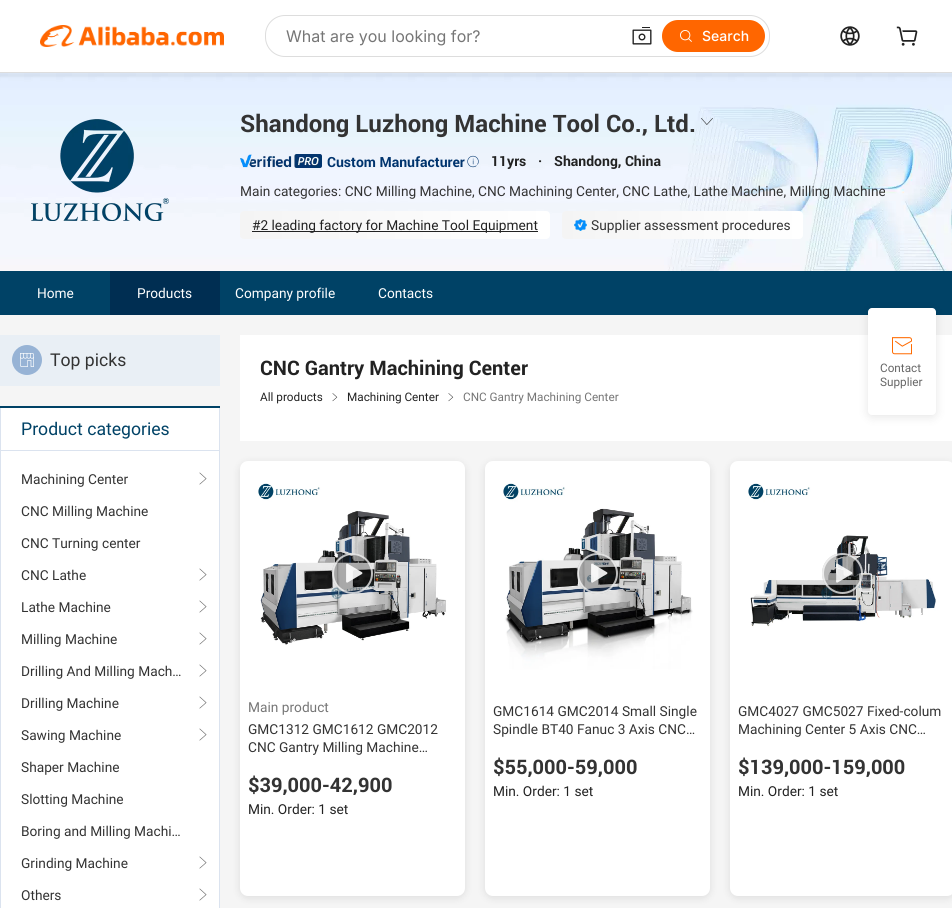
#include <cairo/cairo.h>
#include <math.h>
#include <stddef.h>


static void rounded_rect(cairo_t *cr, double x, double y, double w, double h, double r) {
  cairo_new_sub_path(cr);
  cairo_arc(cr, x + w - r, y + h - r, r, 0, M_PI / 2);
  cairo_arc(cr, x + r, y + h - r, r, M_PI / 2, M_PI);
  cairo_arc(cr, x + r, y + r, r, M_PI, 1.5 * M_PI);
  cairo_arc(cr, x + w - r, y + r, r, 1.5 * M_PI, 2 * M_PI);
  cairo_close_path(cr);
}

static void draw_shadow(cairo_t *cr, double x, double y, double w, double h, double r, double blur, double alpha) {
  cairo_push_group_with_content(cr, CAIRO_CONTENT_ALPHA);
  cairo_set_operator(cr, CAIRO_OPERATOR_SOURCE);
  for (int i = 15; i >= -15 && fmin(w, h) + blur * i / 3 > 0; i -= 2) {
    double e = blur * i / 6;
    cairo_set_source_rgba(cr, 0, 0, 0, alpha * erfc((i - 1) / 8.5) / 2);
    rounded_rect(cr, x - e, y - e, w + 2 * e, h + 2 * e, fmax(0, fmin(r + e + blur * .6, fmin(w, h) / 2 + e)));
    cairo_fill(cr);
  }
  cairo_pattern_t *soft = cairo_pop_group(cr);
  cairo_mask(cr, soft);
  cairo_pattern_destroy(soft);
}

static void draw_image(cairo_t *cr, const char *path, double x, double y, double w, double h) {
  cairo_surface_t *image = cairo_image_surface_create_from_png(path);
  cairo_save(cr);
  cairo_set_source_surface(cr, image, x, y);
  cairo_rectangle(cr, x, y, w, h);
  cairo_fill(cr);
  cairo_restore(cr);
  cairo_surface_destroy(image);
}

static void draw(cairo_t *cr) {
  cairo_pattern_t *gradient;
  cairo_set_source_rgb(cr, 1, 1, 1);
  cairo_paint(cr);
  draw_image(cr, "images/6.png", 0, 73, 952, 198);
  cairo_set_source_rgb(cr, 0, 0, 0);
  draw_shadow(cr, -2, 73, 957, 4, 0, 1, 0.05);
  cairo_set_source_rgb(cr, 221 / 255.0, 221 / 255.0, 221 / 255.0);
  cairo_rectangle(cr, 0, 72, 952, 1);
  cairo_fill(cr);
  draw_image(cr, "images/1.png", 40, 25, 184, 22);
  rounded_rect(cr, 265, 15, 505, 42, 20);
  cairo_fill(cr);
  cairo_set_source_rgb(cr, 1, 1, 1);
  rounded_rect(cr, 266, 16, 503, 40, 19);
  cairo_fill(cr);
  draw_image(cr, "images/2.png", 632, 27, 20, 18);
  cairo_set_source_rgb(cr, 1, 102 / 255.0, 0);
  rounded_rect(cr, 662, 20, 103, 32, 16);
  cairo_fill(cr);
  draw_image(cr, "images/3.png", 680, 30, 12, 12);
  draw_image(cr, "images/4.png", 840, 26, 20, 20);
  draw_image(cr, "images/5.png", 896, 26, 22, 20);
  draw_image(cr, "images/7.png", 31, 119, 138, 102);
  draw_image(cr, "images/8.png", 701, 118, 12, 7);
  draw_image(cr, "images/9.png", 240, 154, 82, 14);
  draw_image(cr, "images/10.png", 467, 155, 12, 13);
  gradient = cairo_pattern_create_linear(550, 225, 240, 225);
  cairo_pattern_add_color_stop_rgba(gradient, 0, 1, 1, 1, 1);
  cairo_pattern_add_color_stop_rgba(gradient, 1, 244 / 255.0, 244 / 255.0, 244 / 255.0, 1);
  cairo_set_source(cr, gradient);
  cairo_pattern_destroy(gradient);
  rounded_rect(cr, 240, 211, 310, 28, 4);
  cairo_fill(cr);
  cairo_set_source_rgb(cr, 34 / 255.0, 34 / 255.0, 34 / 255.0);
  cairo_rectangle(cr, 252, 231, 286, 1);
  cairo_fill(cr);
  gradient = cairo_pattern_create_linear(803, 225, 562, 225);
  cairo_pattern_add_color_stop_rgba(gradient, 0, 1, 1, 1, 1);
  cairo_pattern_add_color_stop_rgba(gradient, 1, 244 / 255.0, 244 / 255.0, 244 / 255.0, 1);
  cairo_set_source(cr, gradient);
  cairo_pattern_destroy(gradient);
  rounded_rect(cr, 562, 211, 241, 28, 4);
  cairo_fill(cr);
  draw_image(cr, "images/11.png", 574, 219, 13, 12);
  cairo_set_source_rgb(cr, 0, 66 / 255.0, 102 / 255.0);
  cairo_rectangle(cr, 0, 271, 952, 44);
  cairo_fill(cr);
  cairo_set_source_rgb(cr, 0, 46 / 255.0, 82 / 255.0);
  cairo_rectangle(cr, 110, 271, 110, 44);
  cairo_fill(cr);
  cairo_set_source_rgb(cr, 245 / 255.0, 245 / 255.0, 245 / 255.0);
  cairo_rectangle(cr, 0, 315, 952, 593);
  cairo_fill(cr);
  cairo_set_source_rgb(cr, 233 / 255.0, 239 / 255.0, 245 / 255.0);
  cairo_rectangle(cr, 0, 335, 220, 51);
  cairo_fill(cr);
  cairo_set_source_rgb(cr, 151 / 255.0, 179 / 255.0, 213 / 255.0);
  cairo_arc(cr, 27, 360, 15, 0, 2 * M_PI);
  cairo_fill(cr);
  draw_image(cr, "images/12.png", 20, 353, 14, 14);
  cairo_set_source_rgb(cr, 1, 1, 1);
  cairo_rectangle(cr, 1, 408, 218, 500);
  cairo_fill(cr);
  cairo_set_source_rgb(cr, 0, 66 / 255.0, 102 / 255.0);
  cairo_rectangle(cr, 0, 406, 220, 2);
  cairo_fill(cr);
  cairo_set_source_rgb(cr, 219 / 255.0, 227 / 255.0, 239 / 255.0);
  cairo_rectangle(cr, 219, 408, 1, 500);
  cairo_fill(cr);
  cairo_rectangle(cr, 0, 408, 1, 500);
  cairo_fill(cr);
  cairo_rectangle(cr, 1, 450, 218, 1);
  cairo_fill(cr);
  draw_image(cr, "images/13.png", 199, 472, 8, 13);
  draw_image(cr, "images/13.png", 199, 568, 8, 13);
  draw_image(cr, "images/13.png", 199, 600, 8, 13);
  draw_image(cr, "images/13.png", 199, 632, 8, 13);
  draw_image(cr, "images/13.png", 199, 664, 8, 13);
  draw_image(cr, "images/13.png", 199, 696, 8, 13);
  draw_image(cr, "images/13.png", 199, 728, 8, 13);
  draw_image(cr, "images/13.png", 199, 856, 8, 13);
  draw_image(cr, "images/13.png", 199, 888, 8, 13);
  cairo_set_source_rgb(cr, 1, 1, 1);
  cairo_rectangle(cr, 240, 335, 712, 106);
  cairo_fill(cr);
  draw_image(cr, "images/14.png", 332, 393, 6, 9);
  draw_image(cr, "images/15.png", 448, 393, 6, 9);
  cairo_set_source_rgb(cr, 0, 0, 0);
  draw_shadow(cr, 240, 463, 225, 435, 8, 4, 0.1);
  cairo_set_source_rgb(cr, 1, 1, 1);
  rounded_rect(cr, 240, 461, 225, 435, 8);
  cairo_fill(cr);
  draw_image(cr, "images/16.png", 248, 469, 209, 209);
  cairo_set_source_rgba(cr, 0, 0, 0, 0.27);
  cairo_arc(cr, 352.5, 573.5, 20.5, 0, 2 * M_PI);
  cairo_fill(cr);
  cairo_arc(cr, 352.5, 573.5, 19.5, 0, 2 * M_PI);
  cairo_set_source_rgba(cr, 1, 1, 1, 0.72);
  cairo_stroke(cr);
  draw_image(cr, "images/17.png", 346, 563, 17, 20);
  cairo_set_source_rgb(cr, 0, 0, 0);
  draw_shadow(cr, 485, 463, 225, 435, 8, 4, 0.1);
  cairo_set_source_rgb(cr, 1, 1, 1);
  rounded_rect(cr, 485, 461, 225, 435, 8);
  cairo_fill(cr);
  draw_image(cr, "images/18.png", 493, 469, 209, 209);
  cairo_set_source_rgba(cr, 0, 0, 0, 0.27);
  cairo_arc(cr, 597.5, 573.5, 20.5, 0, 2 * M_PI);
  cairo_fill(cr);
  cairo_arc(cr, 597.5, 573.5, 19.5, 0, 2 * M_PI);
  cairo_set_source_rgba(cr, 1, 1, 1, 0.72);
  cairo_stroke(cr);
  draw_image(cr, "images/19.png", 591, 563, 17, 20);
  cairo_set_source_rgb(cr, 0, 0, 0);
  draw_shadow(cr, 730, 463, 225, 435, 8, 4, 0.1);
  cairo_set_source_rgb(cr, 1, 1, 1);
  rounded_rect(cr, 730, 461, 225, 435, 8);
  cairo_fill(cr);
  draw_image(cr, "images/20.png", 738, 469, 209, 209);
  cairo_set_source_rgba(cr, 0, 0, 0, 0.27);
  cairo_arc(cr, 842.5, 573.5, 20.5, 0, 2 * M_PI);
  cairo_fill(cr);
  cairo_arc(cr, 842.5, 573.5, 19.5, 0, 2 * M_PI);
  cairo_set_source_rgba(cr, 1, 1, 1, 0.72);
  cairo_stroke(cr);
  draw_image(cr, "images/21.png", 836, 563, 17, 20);
  cairo_set_source_rgb(cr, 0, 0, 0);
  draw_shadow(cr, 868, 310, 68, 107, 4, 5, 0.1);
  cairo_set_source_rgb(cr, 1, 1, 1);
  rounded_rect(cr, 868, 308, 68, 107, 4);
  cairo_fill(cr);
  draw_image(cr, "images/22.png", 892, 337, 20, 18);
  cairo_select_font_face(cr, "Inter", CAIRO_FONT_SLANT_NORMAL, CAIRO_FONT_WEIGHT_NORMAL);
  cairo_set_font_size(cr, 16);
  cairo_set_source_rgb(cr, 118 / 255.0, 118 / 255.0, 118 / 255.0);
  cairo_move_to(cr, 286, 42);
  cairo_show_text(cr, "What are you looking for?");
  cairo_select_font_face(cr, "Inter Medium", CAIRO_FONT_SLANT_NORMAL, CAIRO_FONT_WEIGHT_NORMAL);
  cairo_set_font_size(cr, 14);
  cairo_set_source_rgb(cr, 1, 1, 1);
  cairo_move_to(cr, 702, 41);
  cairo_show_text(cr, "Search");
  cairo_select_font_face(cr, "Roboto", CAIRO_FONT_SLANT_NORMAL, CAIRO_FONT_WEIGHT_BOLD);
  cairo_set_font_size(cr, 24);
  cairo_set_source_rgb(cr, 51 / 255.0, 51 / 255.0, 51 / 255.0);
  cairo_move_to(cr, 240, 132);
  cairo_show_text(cr, "Shandong Luzhong Machine Tool Co., Ltd.");
  cairo_set_font_size(cr, 14);
  cairo_set_source_rgb(cr, 0, 52 / 255.0, 110 / 255.0);
  cairo_move_to(cr, 327, 167);
  cairo_show_text(cr, "Custom Manufacturer");
  cairo_set_source_rgb(cr, 34 / 255.0, 34 / 255.0, 34 / 255.0);
  cairo_move_to(cr, 491, 166);
  cairo_show_text(cr, "11yrs");
  cairo_move_to(cr, 538, 166);
  cairo_show_text(cr, "·");
  cairo_move_to(cr, 554, 166);
  cairo_show_text(cr, "Shandong, China");
  cairo_select_font_face(cr, "Roboto", CAIRO_FONT_SLANT_NORMAL, CAIRO_FONT_WEIGHT_NORMAL);
  cairo_set_source_rgb(cr, 51 / 255.0, 51 / 255.0, 51 / 255.0);
  cairo_move_to(cr, 240, 196);
  cairo_show_text(cr, "Main categories: CNC Milling Machine, CNC Machining Center, CNC Lathe, Lathe Machine, Milling Machine");
  cairo_set_source_rgb(cr, 34 / 255.0, 34 / 255.0, 34 / 255.0);
  cairo_move_to(cr, 252, 230);
  cairo_show_text(cr, "#2 leading factory for Machine Tool Equipment");
  cairo_set_source_rgb(cr, 51 / 255.0, 51 / 255.0, 51 / 255.0);
  cairo_move_to(cr, 591, 230);
  cairo_show_text(cr, "Supplier assessment procedures");
  cairo_set_source_rgb(cr, 1, 1, 1);
  cairo_move_to(cr, 37, 298);
  cairo_show_text(cr, "Home");
  cairo_move_to(cr, 137, 298);
  cairo_show_text(cr, "Products");
  cairo_move_to(cr, 235, 298);
  cairo_show_text(cr, "Company profile");
  cairo_move_to(cr, 378, 298);
  cairo_show_text(cr, "Contacts");
  cairo_set_font_size(cr, 18);
  cairo_set_source_rgb(cr, 51 / 255.0, 51 / 255.0, 51 / 255.0);
  cairo_move_to(cr, 50, 366);
  cairo_show_text(cr, "Top picks");
  cairo_set_source_rgb(cr, 0, 66 / 255.0, 102 / 255.0);
  cairo_move_to(cr, 21, 435);
  cairo_show_text(cr, "Product categories");
  cairo_set_font_size(cr, 14);
  cairo_set_source_rgb(cr, 51 / 255.0, 51 / 255.0, 51 / 255.0);
  cairo_move_to(cr, 21, 484);
  cairo_show_text(cr, "Machining Center");
  cairo_move_to(cr, 21, 516);
  cairo_show_text(cr, "CNC Milling Machine");
  cairo_move_to(cr, 21, 548);
  cairo_show_text(cr, "CNC Turning center");
  cairo_move_to(cr, 21, 580);
  cairo_show_text(cr, "CNC Lathe");
  cairo_move_to(cr, 21, 612);
  cairo_show_text(cr, "Lathe Machine");
  cairo_move_to(cr, 21, 644);
  cairo_show_text(cr, "Milling Machine");
  cairo_move_to(cr, 21, 676);
  cairo_show_text(cr, "Drilling And Milling Mach…");
  cairo_move_to(cr, 21, 708);
  cairo_show_text(cr, "Drilling Machine");
  cairo_move_to(cr, 21, 740);
  cairo_show_text(cr, "Sawing Machine");
  cairo_move_to(cr, 21, 772);
  cairo_show_text(cr, "Shaper Machine");
  cairo_move_to(cr, 21, 804);
  cairo_show_text(cr, "Slotting Machine");
  cairo_move_to(cr, 21, 836);
  cairo_show_text(cr, "Boring and Milling Machi…");
  cairo_move_to(cr, 21, 868);
  cairo_show_text(cr, "Grinding Machine");
  cairo_move_to(cr, 21, 900);
  cairo_show_text(cr, "Others");
  cairo_select_font_face(cr, "Roboto", CAIRO_FONT_SLANT_NORMAL, CAIRO_FONT_WEIGHT_BOLD);
  cairo_set_font_size(cr, 20);
  cairo_set_source_rgb(cr, 34 / 255.0, 34 / 255.0, 34 / 255.0);
  cairo_move_to(cr, 260, 375);
  cairo_show_text(cr, "CNC Gantry Machining Center");
  cairo_select_font_face(cr, "Roboto", CAIRO_FONT_SLANT_NORMAL, CAIRO_FONT_WEIGHT_NORMAL);
  cairo_set_font_size(cr, 12);
  cairo_move_to(cr, 260, 401);
  cairo_show_text(cr, "All products");
  cairo_move_to(cr, 347, 401);
  cairo_show_text(cr, "Machining Center");
  cairo_set_source_rgb(cr, 118 / 255.0, 118 / 255.0, 118 / 255.0);
  cairo_move_to(cr, 463, 401);
  cairo_show_text(cr, "CNC Gantry Machining Center");
  cairo_set_font_size(cr, 14);
  cairo_move_to(cr, 248, 712);
  cairo_show_text(cr, "Main product");
  cairo_set_source_rgb(cr, 51 / 255.0, 51 / 255.0, 51 / 255.0);
  cairo_move_to(cr, 248, 734);
  cairo_show_text(cr, "GMC1312 GMC1612 GMC2012");
  cairo_move_to(cr, 248, 752);
  cairo_show_text(cr, "CNC Gantry Milling Machine…");
  cairo_select_font_face(cr, "Roboto", CAIRO_FONT_SLANT_NORMAL, CAIRO_FONT_WEIGHT_BOLD);
  cairo_set_font_size(cr, 20);
  cairo_move_to(cr, 248, 792);
  cairo_show_text(cr, "$39,000-42,900");
  cairo_select_font_face(cr, "Roboto", CAIRO_FONT_SLANT_NORMAL, CAIRO_FONT_WEIGHT_NORMAL);
  cairo_set_font_size(cr, 14);
  cairo_set_source_rgb(cr, 34 / 255.0, 34 / 255.0, 34 / 255.0);
  cairo_move_to(cr, 248, 814);
  cairo_show_text(cr, "Min. Order: 1 set");
  cairo_set_source_rgb(cr, 51 / 255.0, 51 / 255.0, 51 / 255.0);
  cairo_move_to(cr, 493, 716);
  cairo_show_text(cr, "GMC1614 GMC2014 Small Single");
  cairo_move_to(cr, 493, 734);
  cairo_show_text(cr, "Spindle BT40 Fanuc 3 Axis CNC…");
  cairo_select_font_face(cr, "Roboto", CAIRO_FONT_SLANT_NORMAL, CAIRO_FONT_WEIGHT_BOLD);
  cairo_set_font_size(cr, 20);
  cairo_move_to(cr, 493, 774);
  cairo_show_text(cr, "$55,000-59,000");
  cairo_select_font_face(cr, "Roboto", CAIRO_FONT_SLANT_NORMAL, CAIRO_FONT_WEIGHT_NORMAL);
  cairo_set_font_size(cr, 14);
  cairo_set_source_rgb(cr, 34 / 255.0, 34 / 255.0, 34 / 255.0);
  cairo_move_to(cr, 493, 796);
  cairo_show_text(cr, "Min. Order: 1 set");
  cairo_set_source_rgb(cr, 51 / 255.0, 51 / 255.0, 51 / 255.0);
  cairo_move_to(cr, 738, 716);
  cairo_show_text(cr, "GMC4027 GMC5027 Fixed-colum");
  cairo_move_to(cr, 738, 734);
  cairo_show_text(cr, "Machining Center 5 Axis CNC…");
  cairo_select_font_face(cr, "Roboto", CAIRO_FONT_SLANT_NORMAL, CAIRO_FONT_WEIGHT_BOLD);
  cairo_set_font_size(cr, 20);
  cairo_move_to(cr, 738, 774);
  cairo_show_text(cr, "$139,000-159,000");
  cairo_select_font_face(cr, "Roboto", CAIRO_FONT_SLANT_NORMAL, CAIRO_FONT_WEIGHT_NORMAL);
  cairo_set_font_size(cr, 14);
  cairo_set_source_rgb(cr, 34 / 255.0, 34 / 255.0, 34 / 255.0);
  cairo_move_to(cr, 738, 796);
  cairo_show_text(cr, "Min. Order: 1 set");
  cairo_set_font_size(cr, 12);
  cairo_set_source_rgb(cr, 102 / 255.0, 102 / 255.0, 102 / 255.0);
  cairo_move_to(cr, 880, 372);
  cairo_show_text(cr, "Contact");
  cairo_move_to(cr, 880, 386);
  cairo_show_text(cr, "Supplier");
}

int main(void) {
  cairo_surface_t *surface = cairo_image_surface_create(CAIRO_FORMAT_RGB24, 952, 908);
  cairo_t *cr = cairo_create(surface);
  cairo_font_options_t *options = cairo_font_options_create();
  cairo_font_options_set_hint_metrics(options, CAIRO_HINT_METRICS_OFF);
  cairo_font_options_set_hint_style(options, CAIRO_HINT_STYLE_NONE);
  cairo_set_font_options(cr, options);
  cairo_set_miter_limit(cr, 4);
  draw(cr);
  cairo_surface_write_to_png(surface, "out.png");
  cairo_font_options_destroy(options);
  cairo_destroy(cr);
  cairo_surface_destroy(surface);
  return 0;
}
